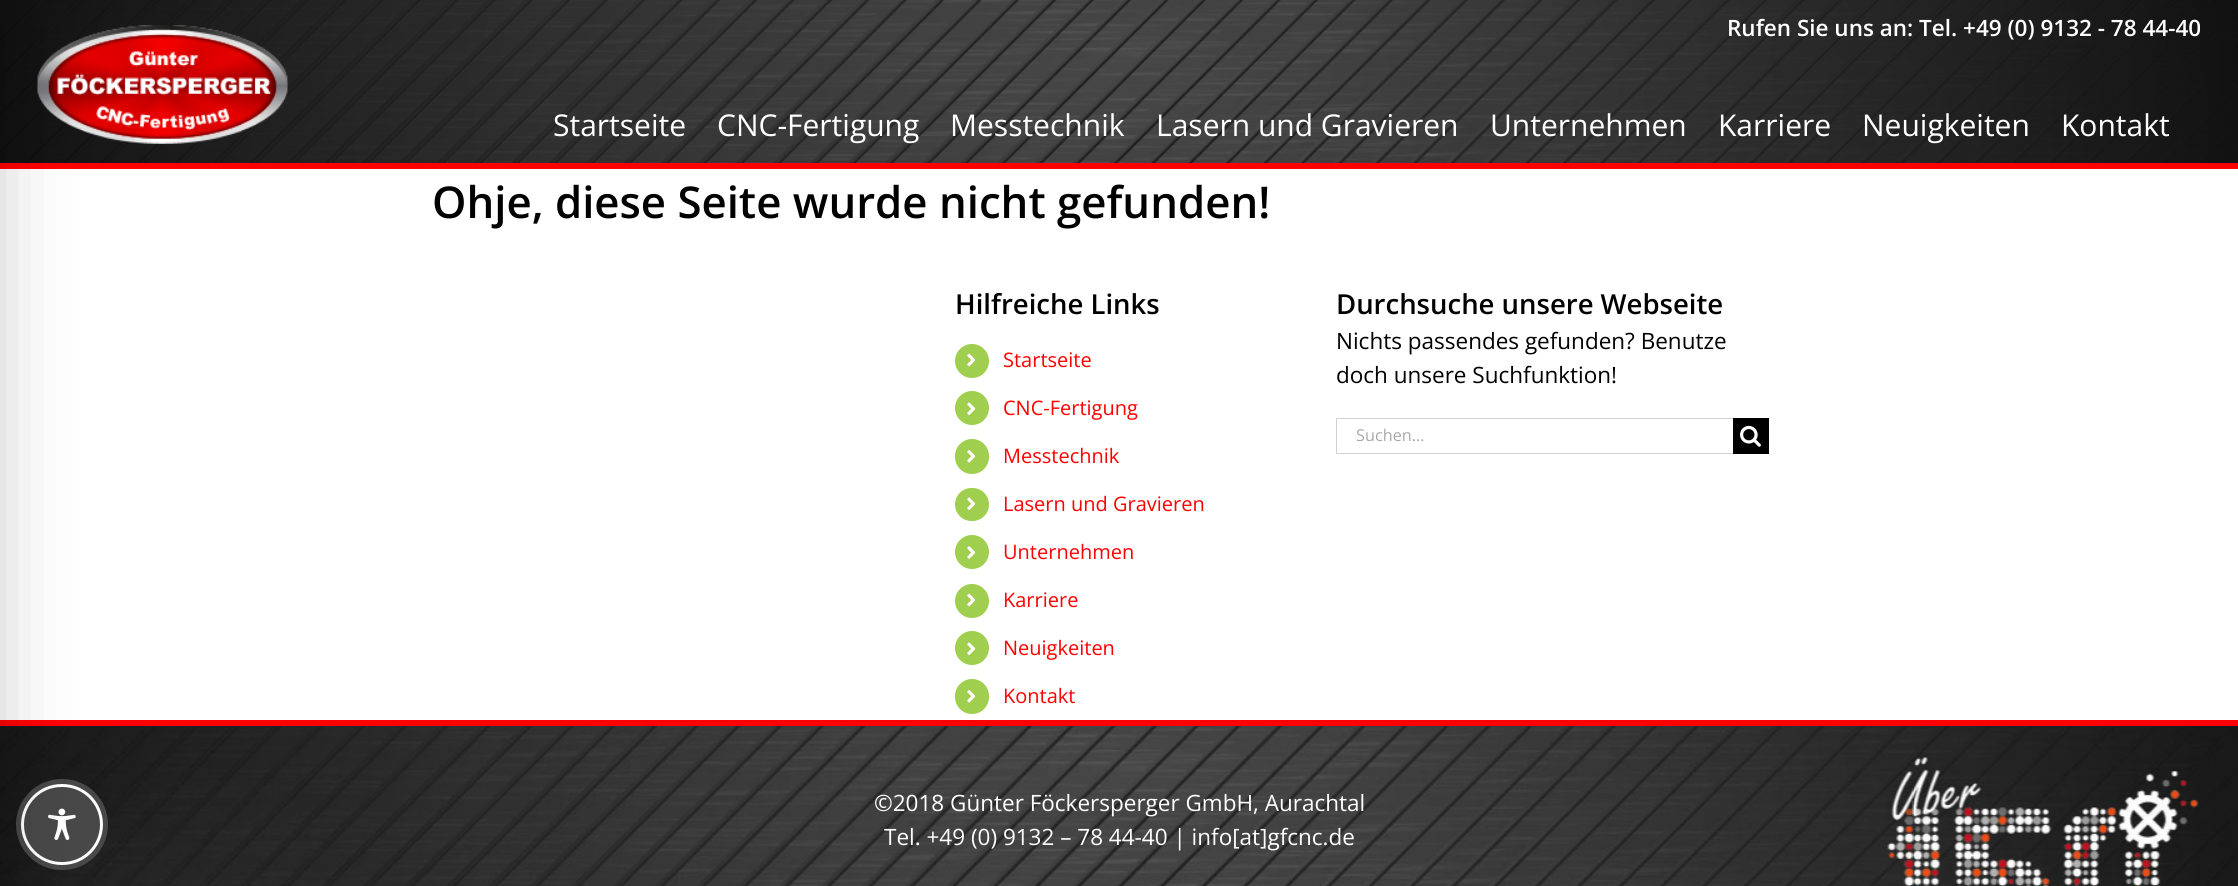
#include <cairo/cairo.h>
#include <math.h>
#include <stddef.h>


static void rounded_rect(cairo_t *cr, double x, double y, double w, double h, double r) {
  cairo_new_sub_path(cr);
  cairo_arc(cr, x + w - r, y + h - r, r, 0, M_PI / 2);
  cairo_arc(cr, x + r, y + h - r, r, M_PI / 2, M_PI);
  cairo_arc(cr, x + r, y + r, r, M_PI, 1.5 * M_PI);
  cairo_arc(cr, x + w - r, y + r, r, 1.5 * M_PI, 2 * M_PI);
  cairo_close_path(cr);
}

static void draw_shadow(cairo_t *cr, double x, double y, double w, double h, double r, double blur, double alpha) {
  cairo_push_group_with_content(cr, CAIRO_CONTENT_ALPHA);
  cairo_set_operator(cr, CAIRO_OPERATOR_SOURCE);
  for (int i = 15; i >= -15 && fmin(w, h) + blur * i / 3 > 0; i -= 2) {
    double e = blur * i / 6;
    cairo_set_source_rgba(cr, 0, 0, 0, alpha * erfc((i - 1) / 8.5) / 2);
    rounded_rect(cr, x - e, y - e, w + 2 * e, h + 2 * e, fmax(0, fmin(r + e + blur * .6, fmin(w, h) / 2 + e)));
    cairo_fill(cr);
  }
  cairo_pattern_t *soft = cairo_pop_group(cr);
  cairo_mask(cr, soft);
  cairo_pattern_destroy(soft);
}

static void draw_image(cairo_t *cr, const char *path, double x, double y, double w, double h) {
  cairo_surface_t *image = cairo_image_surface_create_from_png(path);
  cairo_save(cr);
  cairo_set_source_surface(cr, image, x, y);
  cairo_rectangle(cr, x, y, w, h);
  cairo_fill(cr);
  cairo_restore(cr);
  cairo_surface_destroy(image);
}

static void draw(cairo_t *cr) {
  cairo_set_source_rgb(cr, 1, 1, 1);
  cairo_paint(cr);
  draw_image(cr, "images/9.png", 0, 726, 2238, 160);
  rounded_rect(cr, 18.5, 781.5, 87, 86, 43);
  cairo_set_source_rgb(cr, 72 / 255.0, 72 / 255.0, 72 / 255.0);
  cairo_set_line_width(cr, 5);
  cairo_stroke(cr);
  rounded_rect(cr, 22.5, 785.5, 79, 78, 39);
  cairo_fill_preserve(cr);
  cairo_set_source_rgb(cr, 1, 1, 1);
  cairo_set_line_width(cr, 3);
  cairo_stroke(cr);
  draw_image(cr, "images/1.png", 48, 808, 28, 32);
  draw_image(cr, "images/2.png", 0, 0, 2238, 163);
  cairo_set_source_rgb(cr, 1, 0, 0);
  cairo_rectangle(cr, 0, 163, 2238, 6);
  cairo_fill(cr);
  draw_image(cr, "images/3.png", 37, 25, 251, 119);
  cairo_rectangle(cr, 0, 720, 2238, 6);
  cairo_fill(cr);
  cairo_set_source_rgb(cr, 0, 0, 0);
  draw_shadow(cr, -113, 13, 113, 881, 0, 37.5, 0.2);
  cairo_set_source_rgb(cr, 160 / 255.0, 206 / 255.0, 78 / 255.0);
  cairo_arc(cr, 972, 361, 17, 0, 2 * M_PI);
  cairo_fill(cr);
  draw_image(cr, "images/4.png", 967, 353, 9, 14);
  cairo_arc(cr, 972, 408, 17, 0, 2 * M_PI);
  cairo_fill(cr);
  draw_image(cr, "images/5.png", 967, 402, 9, 13);
  rounded_rect(cr, 955, 439, 34, 35, 17);
  cairo_fill(cr);
  draw_image(cr, "images/6.png", 967, 450, 9, 13);
  rounded_rect(cr, 955, 488, 34, 33, 16.5);
  cairo_fill(cr);
  draw_image(cr, "images/5.png", 967, 497, 9, 13);
  cairo_arc(cr, 972, 552, 17, 0, 2 * M_PI);
  cairo_fill(cr);
  draw_image(cr, "images/7.png", 967, 546, 9, 13);
  cairo_arc(cr, 972, 601, 17, 0, 2 * M_PI);
  cairo_fill(cr);
  draw_image(cr, "images/4.png", 967, 593, 9, 14);
  cairo_arc(cr, 972, 648, 17, 0, 2 * M_PI);
  cairo_fill(cr);
  draw_image(cr, "images/5.png", 967, 642, 9, 13);
  rounded_rect(cr, 955, 679, 34, 35, 17);
  cairo_fill(cr);
  draw_image(cr, "images/6.png", 967, 690, 9, 13);
  cairo_set_source_rgb(cr, 210 / 255.0, 210 / 255.0, 210 / 255.0);
  cairo_rectangle(cr, 1336, 418, 397, 1);
  cairo_fill(cr);
  cairo_rectangle(cr, 1336, 453, 397, 1);
  cairo_fill(cr);
  cairo_rectangle(cr, 1336, 418, 1, 36);
  cairo_fill(cr);
  cairo_set_source_rgb(cr, 0, 0, 0);
  cairo_rectangle(cr, 1733, 418, 36, 36);
  cairo_fill(cr);
  draw_image(cr, "images/8.png", 1740, 425, 21, 22);
  cairo_select_font_face(cr, "Open Sans SemiBold", CAIRO_FONT_SLANT_NORMAL, CAIRO_FONT_WEIGHT_NORMAL);
  cairo_set_font_size(cr, 22.5);
  cairo_set_source_rgb(cr, 1, 1, 1);
  cairo_move_to(cr, 1727, 36);
  cairo_show_text(cr, "Rufen Sie uns an: Tel. +49 (0) 9132 - 78 44-40");
  cairo_select_font_face(cr, "Open Sans", CAIRO_FONT_SLANT_NORMAL, CAIRO_FONT_WEIGHT_NORMAL);
  cairo_set_font_size(cr, 30);
  cairo_move_to(cr, 553, 136);
  cairo_show_text(cr, "Startseite");
  cairo_move_to(cr, 717, 136);
  cairo_show_text(cr, "CNC-Fertigung");
  cairo_move_to(cr, 950, 136);
  cairo_show_text(cr, "Messtechnik");
  cairo_move_to(cr, 1156, 136);
  cairo_show_text(cr, "Lasern und Gravieren");
  cairo_move_to(cr, 1490, 136);
  cairo_show_text(cr, "Unternehmen");
  cairo_move_to(cr, 1718, 136);
  cairo_show_text(cr, "Karriere");
  cairo_move_to(cr, 1862, 136);
  cairo_show_text(cr, "Neuigkeiten");
  cairo_move_to(cr, 2061, 136);
  cairo_show_text(cr, "Kontakt");
  cairo_select_font_face(cr, "Open Sans SemiBold", CAIRO_FONT_SLANT_NORMAL, CAIRO_FONT_WEIGHT_NORMAL);
  cairo_set_font_size(cr, 43.75);
  cairo_set_source_rgb(cr, 0, 0, 0);
  cairo_move_to(cr, 432, 218);
  cairo_show_text(cr, "Ohje, diese Seite wurde nicht gefunden!");
  cairo_set_font_size(cr, 27.5);
  cairo_move_to(cr, 955, 314);
  cairo_show_text(cr, "Hilfreiche Links");
  cairo_select_font_face(cr, "Open Sans", CAIRO_FONT_SLANT_NORMAL, CAIRO_FONT_WEIGHT_NORMAL);
  cairo_set_font_size(cr, 20);
  cairo_set_source_rgb(cr, 1, 0, 0);
  cairo_move_to(cr, 1003, 367);
  cairo_show_text(cr, "Startseite");
  cairo_move_to(cr, 1003, 415);
  cairo_show_text(cr, "CNC-Fertigung");
  cairo_move_to(cr, 1003, 463);
  cairo_show_text(cr, "Messtechnik");
  cairo_move_to(cr, 1003, 511);
  cairo_show_text(cr, "Lasern und Gravieren");
  cairo_move_to(cr, 1003, 559);
  cairo_show_text(cr, "Unternehmen");
  cairo_move_to(cr, 1003, 607);
  cairo_show_text(cr, "Karriere");
  cairo_move_to(cr, 1003, 655);
  cairo_show_text(cr, "Neuigkeiten");
  cairo_move_to(cr, 1003, 703);
  cairo_show_text(cr, "Kontakt");
  cairo_select_font_face(cr, "Open Sans SemiBold", CAIRO_FONT_SLANT_NORMAL, CAIRO_FONT_WEIGHT_NORMAL);
  cairo_set_font_size(cr, 27.5);
  cairo_set_source_rgb(cr, 0, 0, 0);
  cairo_move_to(cr, 1336, 314);
  cairo_show_text(cr, "Durchsuche unsere Webseite");
  cairo_select_font_face(cr, "Open Sans", CAIRO_FONT_SLANT_NORMAL, CAIRO_FONT_WEIGHT_NORMAL);
  cairo_set_font_size(cr, 22.5);
  cairo_move_to(cr, 1336, 349);
  cairo_show_text(cr, "Nichts passendes gefunden? Benutze");
  cairo_move_to(cr, 1336, 383);
  cairo_show_text(cr, "doch unsere Suchfunktion!");
  cairo_set_font_size(cr, 16.25);
  cairo_set_source_rgb(cr, 170 / 255.0, 169 / 255.0, 169 / 255.0);
  cairo_move_to(cr, 1356, 441);
  cairo_show_text(cr, "Suchen...");
  cairo_set_font_size(cr, 22.5);
  cairo_set_source_rgb(cr, 1, 1, 1);
  cairo_move_to(cr, 874, 811);
  cairo_show_text(cr, "©2018 Günter Föckersperger GmbH, Aurachtal");
  cairo_move_to(cr, 884, 845);
  cairo_show_text(cr, "Tel. +49 (0) 9132 – 78 44-40 | info[at]gfcnc.de");
}

int main(void) {
  cairo_surface_t *surface = cairo_image_surface_create(CAIRO_FORMAT_RGB24, 2238, 886);
  cairo_t *cr = cairo_create(surface);
  cairo_font_options_t *options = cairo_font_options_create();
  cairo_font_options_set_hint_metrics(options, CAIRO_HINT_METRICS_OFF);
  cairo_font_options_set_hint_style(options, CAIRO_HINT_STYLE_NONE);
  cairo_set_font_options(cr, options);
  cairo_set_miter_limit(cr, 4);
  draw(cr);
  cairo_surface_write_to_png(surface, "out.png");
  cairo_font_options_destroy(options);
  cairo_destroy(cr);
  cairo_surface_destroy(surface);
  return 0;
}
